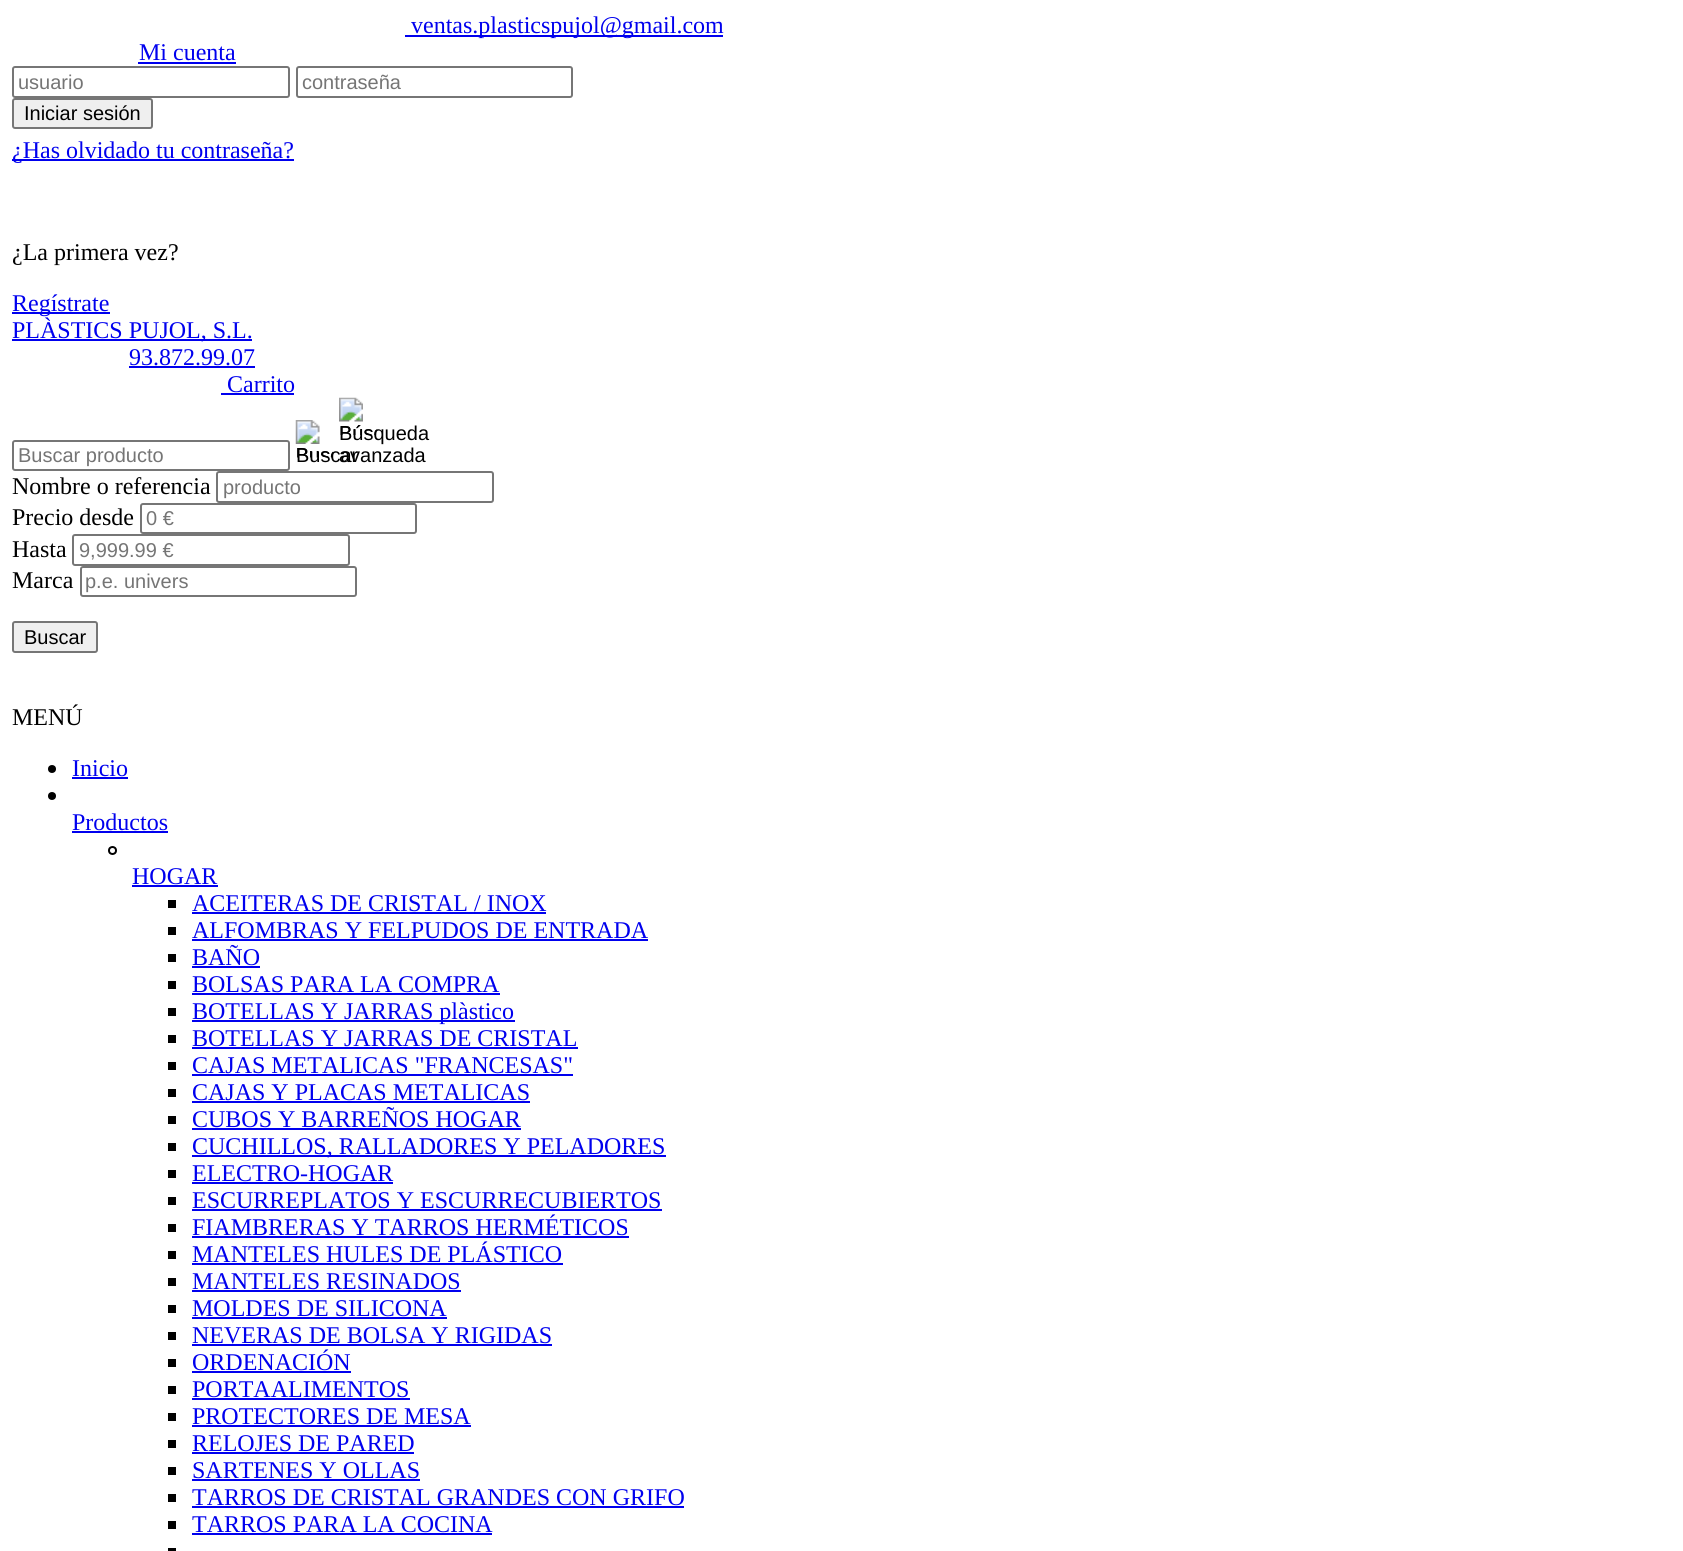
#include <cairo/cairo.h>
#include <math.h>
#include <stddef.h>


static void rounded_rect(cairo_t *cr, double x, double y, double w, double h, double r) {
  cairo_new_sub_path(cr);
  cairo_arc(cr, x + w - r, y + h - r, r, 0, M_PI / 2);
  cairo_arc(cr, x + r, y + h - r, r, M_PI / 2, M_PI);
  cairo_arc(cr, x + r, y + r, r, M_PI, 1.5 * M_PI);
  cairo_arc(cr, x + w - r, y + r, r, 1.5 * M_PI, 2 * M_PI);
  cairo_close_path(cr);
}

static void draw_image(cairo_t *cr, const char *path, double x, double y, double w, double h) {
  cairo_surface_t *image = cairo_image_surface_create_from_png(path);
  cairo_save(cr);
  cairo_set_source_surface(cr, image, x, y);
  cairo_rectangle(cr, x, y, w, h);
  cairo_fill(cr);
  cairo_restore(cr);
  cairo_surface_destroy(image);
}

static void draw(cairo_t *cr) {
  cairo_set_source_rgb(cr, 1, 1, 1);
  cairo_paint(cr);
  cairo_set_source_rgb(cr, 0, 0, 238 / 255.0);
  cairo_rectangle(cr, 405, 35, 318, 2);
  cairo_fill(cr);
  cairo_rectangle(cr, 138, 62, 98, 2);
  cairo_fill(cr);
  rounded_rect(cr, 13, 67, 276, 30, 2);
  cairo_set_source_rgb(cr, 118 / 255.0, 118 / 255.0, 118 / 255.0);
  cairo_stroke(cr);
  rounded_rect(cr, 297, 67, 275, 30, 2);
  cairo_stroke(cr);
  cairo_set_source_rgb(cr, 239 / 255.0, 239 / 255.0, 239 / 255.0);
  rounded_rect(cr, 13, 99, 139, 29, 2);
  cairo_fill_preserve(cr);
  cairo_set_source_rgb(cr, 118 / 255.0, 118 / 255.0, 118 / 255.0);
  cairo_stroke(cr);
  cairo_set_source_rgb(cr, 0, 0, 238 / 255.0);
  cairo_rectangle(cr, 12, 159, 282, 2);
  cairo_fill(cr);
  cairo_rectangle(cr, 12, 312, 98, 2);
  cairo_fill(cr);
  cairo_rectangle(cr, 12, 339, 240, 2);
  cairo_fill(cr);
  cairo_rectangle(cr, 129, 366, 126, 2);
  cairo_fill(cr);
  cairo_rectangle(cr, 221, 393, 73, 2);
  cairo_fill(cr);
  rounded_rect(cr, 13, 441, 276, 29, 2);
  cairo_set_source_rgb(cr, 118 / 255.0, 118 / 255.0, 118 / 255.0);
  cairo_stroke(cr);
  draw_image(cr, "images/1.png", 295, 420, 38, 38);
  draw_image(cr, "images/2.png", 339, 397, 38, 38);
  rounded_rect(cr, 217, 472, 276, 30, 2);
  cairo_stroke(cr);
  rounded_rect(cr, 141, 504, 275, 29, 2);
  cairo_stroke(cr);
  rounded_rect(cr, 73, 535, 276, 30, 2);
  cairo_stroke(cr);
  rounded_rect(cr, 81, 567, 275, 29, 2);
  cairo_stroke(cr);
  cairo_set_source_rgb(cr, 239 / 255.0, 239 / 255.0, 239 / 255.0);
  rounded_rect(cr, 13, 622, 84, 30, 2);
  cairo_fill_preserve(cr);
  cairo_set_source_rgb(cr, 118 / 255.0, 118 / 255.0, 118 / 255.0);
  cairo_stroke(cr);
  cairo_set_source_rgb(cr, 0, 0, 0);
  cairo_arc(cr, 52, 769, 4, 0, 2 * M_PI);
  cairo_fill(cr);
  cairo_set_source_rgb(cr, 0, 0, 238 / 255.0);
  cairo_rectangle(cr, 72, 777, 56, 2);
  cairo_fill(cr);
  cairo_set_source_rgb(cr, 0, 0, 0);
  cairo_arc(cr, 52, 796, 4, 0, 2 * M_PI);
  cairo_fill(cr);
  cairo_set_source_rgb(cr, 0, 0, 238 / 255.0);
  cairo_rectangle(cr, 72, 831, 96, 2);
  cairo_fill(cr);
  cairo_arc(cr, 112.5, 850.5, 3.5, 0, 2 * M_PI);
  cairo_set_source_rgb(cr, 0, 0, 0);
  cairo_stroke(cr);
  cairo_set_source_rgb(cr, 0, 0, 238 / 255.0);
  cairo_rectangle(cr, 132, 885, 86, 2);
  cairo_fill(cr);
  cairo_set_source_rgb(cr, 0, 0, 0);
  cairo_rectangle(cr, 168, 900, 8, 8);
  cairo_fill(cr);
  cairo_set_source_rgb(cr, 0, 0, 238 / 255.0);
  cairo_rectangle(cr, 192, 912, 354, 2);
  cairo_fill(cr);
  cairo_set_source_rgb(cr, 0, 0, 0);
  cairo_rectangle(cr, 168, 927, 8, 8);
  cairo_fill(cr);
  cairo_set_source_rgb(cr, 0, 0, 238 / 255.0);
  cairo_rectangle(cr, 192, 939, 456, 2);
  cairo_fill(cr);
  cairo_set_source_rgb(cr, 0, 0, 0);
  cairo_rectangle(cr, 168, 954, 8, 8);
  cairo_fill(cr);
  cairo_set_source_rgb(cr, 0, 0, 238 / 255.0);
  cairo_rectangle(cr, 192, 966, 68, 2);
  cairo_fill(cr);
  cairo_set_source_rgb(cr, 0, 0, 0);
  cairo_rectangle(cr, 168, 981, 8, 8);
  cairo_fill(cr);
  cairo_set_source_rgb(cr, 0, 0, 238 / 255.0);
  cairo_rectangle(cr, 192, 993, 308, 2);
  cairo_fill(cr);
  cairo_set_source_rgb(cr, 0, 0, 0);
  cairo_rectangle(cr, 168, 1008, 8, 8);
  cairo_fill(cr);
  cairo_set_source_rgb(cr, 0, 0, 238 / 255.0);
  cairo_rectangle(cr, 192, 1020, 323, 2);
  cairo_fill(cr);
  cairo_set_source_rgb(cr, 0, 0, 0);
  cairo_rectangle(cr, 168, 1035, 8, 8);
  cairo_fill(cr);
  cairo_set_source_rgb(cr, 0, 0, 238 / 255.0);
  cairo_rectangle(cr, 192, 1047, 386, 2);
  cairo_fill(cr);
  cairo_set_source_rgb(cr, 0, 0, 0);
  cairo_rectangle(cr, 168, 1062, 8, 8);
  cairo_fill(cr);
  cairo_set_source_rgb(cr, 0, 0, 238 / 255.0);
  cairo_rectangle(cr, 192, 1074, 381, 2);
  cairo_fill(cr);
  cairo_set_source_rgb(cr, 0, 0, 0);
  cairo_rectangle(cr, 168, 1089, 8, 8);
  cairo_fill(cr);
  cairo_set_source_rgb(cr, 0, 0, 238 / 255.0);
  cairo_rectangle(cr, 192, 1101, 338, 2);
  cairo_fill(cr);
  cairo_set_source_rgb(cr, 0, 0, 0);
  cairo_rectangle(cr, 168, 1116, 8, 8);
  cairo_fill(cr);
  cairo_set_source_rgb(cr, 0, 0, 238 / 255.0);
  cairo_rectangle(cr, 192, 1128, 329, 2);
  cairo_fill(cr);
  cairo_set_source_rgb(cr, 0, 0, 0);
  cairo_rectangle(cr, 168, 1143, 8, 8);
  cairo_fill(cr);
  cairo_set_source_rgb(cr, 0, 0, 238 / 255.0);
  cairo_rectangle(cr, 192, 1155, 474, 2);
  cairo_fill(cr);
  cairo_set_source_rgb(cr, 0, 0, 0);
  cairo_rectangle(cr, 168, 1170, 8, 8);
  cairo_fill(cr);
  cairo_set_source_rgb(cr, 0, 0, 238 / 255.0);
  cairo_rectangle(cr, 192, 1182, 201, 2);
  cairo_fill(cr);
  cairo_set_source_rgb(cr, 0, 0, 0);
  cairo_rectangle(cr, 168, 1197, 8, 8);
  cairo_fill(cr);
  cairo_set_source_rgb(cr, 0, 0, 238 / 255.0);
  cairo_rectangle(cr, 192, 1209, 470, 2);
  cairo_fill(cr);
  cairo_set_source_rgb(cr, 0, 0, 0);
  cairo_rectangle(cr, 168, 1224, 8, 8);
  cairo_fill(cr);
  cairo_set_source_rgb(cr, 0, 0, 238 / 255.0);
  cairo_rectangle(cr, 192, 1236, 437, 2);
  cairo_fill(cr);
  cairo_set_source_rgb(cr, 0, 0, 0);
  cairo_rectangle(cr, 168, 1251, 8, 8);
  cairo_fill(cr);
  cairo_set_source_rgb(cr, 0, 0, 238 / 255.0);
  cairo_rectangle(cr, 192, 1263, 371, 2);
  cairo_fill(cr);
  cairo_set_source_rgb(cr, 0, 0, 0);
  cairo_rectangle(cr, 168, 1278, 8, 8);
  cairo_fill(cr);
  cairo_set_source_rgb(cr, 0, 0, 238 / 255.0);
  cairo_rectangle(cr, 192, 1290, 269, 2);
  cairo_fill(cr);
  cairo_set_source_rgb(cr, 0, 0, 0);
  cairo_rectangle(cr, 168, 1305, 8, 8);
  cairo_fill(cr);
  cairo_set_source_rgb(cr, 0, 0, 238 / 255.0);
  cairo_rectangle(cr, 192, 1317, 255, 2);
  cairo_fill(cr);
  cairo_set_source_rgb(cr, 0, 0, 0);
  cairo_rectangle(cr, 168, 1332, 8, 8);
  cairo_fill(cr);
  cairo_set_source_rgb(cr, 0, 0, 238 / 255.0);
  cairo_rectangle(cr, 192, 1344, 360, 2);
  cairo_fill(cr);
  cairo_set_source_rgb(cr, 0, 0, 0);
  cairo_rectangle(cr, 168, 1359, 8, 8);
  cairo_fill(cr);
  cairo_set_source_rgb(cr, 0, 0, 238 / 255.0);
  cairo_rectangle(cr, 192, 1371, 159, 2);
  cairo_fill(cr);
  cairo_set_source_rgb(cr, 0, 0, 0);
  cairo_rectangle(cr, 168, 1386, 8, 8);
  cairo_fill(cr);
  cairo_set_source_rgb(cr, 0, 0, 238 / 255.0);
  cairo_rectangle(cr, 192, 1398, 218, 2);
  cairo_fill(cr);
  cairo_set_source_rgb(cr, 0, 0, 0);
  cairo_rectangle(cr, 168, 1413, 8, 8);
  cairo_fill(cr);
  cairo_set_source_rgb(cr, 0, 0, 238 / 255.0);
  cairo_rectangle(cr, 192, 1425, 279, 2);
  cairo_fill(cr);
  cairo_set_source_rgb(cr, 0, 0, 0);
  cairo_rectangle(cr, 168, 1440, 8, 8);
  cairo_fill(cr);
  cairo_set_source_rgb(cr, 0, 0, 238 / 255.0);
  cairo_rectangle(cr, 192, 1452, 222, 2);
  cairo_fill(cr);
  cairo_set_source_rgb(cr, 0, 0, 0);
  cairo_rectangle(cr, 168, 1467, 8, 8);
  cairo_fill(cr);
  cairo_set_source_rgb(cr, 0, 0, 238 / 255.0);
  cairo_rectangle(cr, 192, 1479, 228, 2);
  cairo_fill(cr);
  cairo_set_source_rgb(cr, 0, 0, 0);
  cairo_rectangle(cr, 168, 1494, 8, 8);
  cairo_fill(cr);
  cairo_set_source_rgb(cr, 0, 0, 238 / 255.0);
  cairo_rectangle(cr, 192, 1506, 492, 2);
  cairo_fill(cr);
  cairo_set_source_rgb(cr, 0, 0, 0);
  cairo_rectangle(cr, 168, 1521, 8, 8);
  cairo_fill(cr);
  cairo_set_source_rgb(cr, 0, 0, 238 / 255.0);
  cairo_rectangle(cr, 192, 1533, 300, 2);
  cairo_fill(cr);
  cairo_set_source_rgb(cr, 0, 0, 0);
  cairo_rectangle(cr, 168, 1548, 8, 3);
  cairo_fill(cr);
  cairo_select_font_face(cr, "Liberation Serif", CAIRO_FONT_SLANT_NORMAL, CAIRO_FONT_WEIGHT_NORMAL);
  cairo_set_font_size(cr, 24);
  cairo_set_source_rgb(cr, 0, 0, 238 / 255.0);
  cairo_move_to(cr, 411, 33);
  cairo_show_text(cr, "ventas.plasticspujol@gmail.com");
  cairo_move_to(cr, 139, 60);
  cairo_show_text(cr, "Mi cuenta");
  cairo_select_font_face(cr, "Liberation Sans", CAIRO_FONT_SLANT_NORMAL, CAIRO_FONT_WEIGHT_NORMAL);
  cairo_set_font_size(cr, 20);
  cairo_set_source_rgb(cr, 117 / 255.0, 117 / 255.0, 117 / 255.0);
  cairo_move_to(cr, 18, 89);
  cairo_show_text(cr, "usuario");
  cairo_move_to(cr, 302, 89);
  cairo_show_text(cr, "contraseña");
  cairo_set_source_rgb(cr, 0, 0, 0);
  cairo_move_to(cr, 24, 120);
  cairo_show_text(cr, "Iniciar sesión");
  cairo_select_font_face(cr, "Liberation Serif", CAIRO_FONT_SLANT_NORMAL, CAIRO_FONT_WEIGHT_NORMAL);
  cairo_set_font_size(cr, 24);
  cairo_set_source_rgb(cr, 0, 0, 238 / 255.0);
  cairo_move_to(cr, 12, 158);
  cairo_show_text(cr, "¿Has olvidado tu contraseña?");
  cairo_set_source_rgb(cr, 0, 0, 0);
  cairo_move_to(cr, 12, 260);
  cairo_show_text(cr, "¿La primera vez?");
  cairo_set_source_rgb(cr, 0, 0, 238 / 255.0);
  cairo_move_to(cr, 12, 311);
  cairo_show_text(cr, "Regístrate");
  cairo_move_to(cr, 12, 338);
  cairo_show_text(cr, "PLÀSTICS PUJOL, S.L.");
  cairo_move_to(cr, 129, 365);
  cairo_show_text(cr, "93.872.99.07");
  cairo_move_to(cr, 227, 392);
  cairo_show_text(cr, "Carrito");
  cairo_select_font_face(cr, "Liberation Sans", CAIRO_FONT_SLANT_NORMAL, CAIRO_FONT_WEIGHT_NORMAL);
  cairo_set_font_size(cr, 20);
  cairo_set_source_rgb(cr, 117 / 255.0, 117 / 255.0, 117 / 255.0);
  cairo_move_to(cr, 18, 462);
  cairo_show_text(cr, "Buscar producto");
  cairo_set_source_rgb(cr, 0, 0, 0);
  cairo_move_to(cr, 296, 462);
  cairo_show_text(cr, "Buscar");
  cairo_move_to(cr, 339, 440);
  cairo_show_text(cr, "Búsqueda");
  cairo_move_to(cr, 339, 462);
  cairo_show_text(cr, "avanzada");
  cairo_select_font_face(cr, "Liberation Serif", CAIRO_FONT_SLANT_NORMAL, CAIRO_FONT_WEIGHT_NORMAL);
  cairo_set_font_size(cr, 24);
  cairo_move_to(cr, 12, 494);
  cairo_show_text(cr, "Nombre o referencia");
  cairo_select_font_face(cr, "Liberation Sans", CAIRO_FONT_SLANT_NORMAL, CAIRO_FONT_WEIGHT_NORMAL);
  cairo_set_font_size(cr, 20);
  cairo_set_source_rgb(cr, 117 / 255.0, 117 / 255.0, 117 / 255.0);
  cairo_move_to(cr, 223, 494);
  cairo_show_text(cr, "producto");
  cairo_select_font_face(cr, "Liberation Serif", CAIRO_FONT_SLANT_NORMAL, CAIRO_FONT_WEIGHT_NORMAL);
  cairo_set_font_size(cr, 24);
  cairo_set_source_rgb(cr, 0, 0, 0);
  cairo_move_to(cr, 12, 525);
  cairo_show_text(cr, "Precio desde");
  cairo_select_font_face(cr, "Liberation Sans", CAIRO_FONT_SLANT_NORMAL, CAIRO_FONT_WEIGHT_NORMAL);
  cairo_set_font_size(cr, 20);
  cairo_set_source_rgb(cr, 117 / 255.0, 117 / 255.0, 117 / 255.0);
  cairo_move_to(cr, 146, 525);
  cairo_show_text(cr, "0 €");
  cairo_select_font_face(cr, "Liberation Serif", CAIRO_FONT_SLANT_NORMAL, CAIRO_FONT_WEIGHT_NORMAL);
  cairo_set_font_size(cr, 24);
  cairo_set_source_rgb(cr, 0, 0, 0);
  cairo_move_to(cr, 12, 557);
  cairo_show_text(cr, "Hasta");
  cairo_select_font_face(cr, "Liberation Sans", CAIRO_FONT_SLANT_NORMAL, CAIRO_FONT_WEIGHT_NORMAL);
  cairo_set_font_size(cr, 20);
  cairo_set_source_rgb(cr, 117 / 255.0, 117 / 255.0, 117 / 255.0);
  cairo_move_to(cr, 79, 557);
  cairo_show_text(cr, "9,999.99 €");
  cairo_select_font_face(cr, "Liberation Serif", CAIRO_FONT_SLANT_NORMAL, CAIRO_FONT_WEIGHT_NORMAL);
  cairo_set_font_size(cr, 24);
  cairo_set_source_rgb(cr, 0, 0, 0);
  cairo_move_to(cr, 12, 588);
  cairo_show_text(cr, "Marca");
  cairo_select_font_face(cr, "Liberation Sans", CAIRO_FONT_SLANT_NORMAL, CAIRO_FONT_WEIGHT_NORMAL);
  cairo_set_font_size(cr, 20);
  cairo_set_source_rgb(cr, 117 / 255.0, 117 / 255.0, 117 / 255.0);
  cairo_move_to(cr, 85, 588);
  cairo_show_text(cr, "p.e. univers");
  cairo_set_source_rgb(cr, 0, 0, 0);
  cairo_move_to(cr, 24, 644);
  cairo_show_text(cr, "Buscar");
  cairo_select_font_face(cr, "Liberation Serif", CAIRO_FONT_SLANT_NORMAL, CAIRO_FONT_WEIGHT_NORMAL);
  cairo_set_font_size(cr, 24);
  cairo_move_to(cr, 12, 725);
  cairo_show_text(cr, "MENÚ");
  cairo_set_source_rgb(cr, 0, 0, 238 / 255.0);
  cairo_move_to(cr, 72, 776);
  cairo_show_text(cr, "Inicio");
  cairo_move_to(cr, 72, 830);
  cairo_show_text(cr, "Productos");
  cairo_move_to(cr, 132, 884);
  cairo_show_text(cr, "HOGAR");
  cairo_move_to(cr, 192, 911);
  cairo_show_text(cr, "ACEITERAS DE CRISTAL / INOX");
  cairo_move_to(cr, 192, 938);
  cairo_show_text(cr, "ALFOMBRAS Y FELPUDOS DE ENTRADA");
  cairo_move_to(cr, 192, 965);
  cairo_show_text(cr, "BAÑO");
  cairo_move_to(cr, 192, 992);
  cairo_show_text(cr, "BOLSAS PARA LA COMPRA");
  cairo_move_to(cr, 192, 1019);
  cairo_show_text(cr, "BOTELLAS Y JARRAS plàstico");
  cairo_move_to(cr, 192, 1046);
  cairo_show_text(cr, "BOTELLAS Y JARRAS DE CRISTAL");
  cairo_move_to(cr, 192, 1073);
  cairo_show_text(cr, "CAJAS METALICAS \"FRANCESAS\"");
  cairo_move_to(cr, 192, 1100);
  cairo_show_text(cr, "CAJAS Y PLACAS METALICAS");
  cairo_move_to(cr, 192, 1127);
  cairo_show_text(cr, "CUBOS Y BARREÑOS HOGAR");
  cairo_move_to(cr, 192, 1154);
  cairo_show_text(cr, "CUCHILLOS, RALLADORES Y PELADORES");
  cairo_move_to(cr, 192, 1181);
  cairo_show_text(cr, "ELECTRO-HOGAR");
  cairo_move_to(cr, 192, 1208);
  cairo_show_text(cr, "ESCURREPLATOS Y ESCURRECUBIERTOS");
  cairo_move_to(cr, 192, 1235);
  cairo_show_text(cr, "FIAMBRERAS Y TARROS HERMÉTICOS");
  cairo_move_to(cr, 192, 1262);
  cairo_show_text(cr, "MANTELES HULES DE PLÁSTICO");
  cairo_move_to(cr, 192, 1289);
  cairo_show_text(cr, "MANTELES RESINADOS");
  cairo_move_to(cr, 192, 1316);
  cairo_show_text(cr, "MOLDES DE SILICONA");
  cairo_move_to(cr, 192, 1343);
  cairo_show_text(cr, "NEVERAS DE BOLSA Y RIGIDAS");
  cairo_move_to(cr, 192, 1370);
  cairo_show_text(cr, "ORDENACIÓN");
  cairo_move_to(cr, 192, 1397);
  cairo_show_text(cr, "PORTAALIMENTOS");
  cairo_move_to(cr, 192, 1424);
  cairo_show_text(cr, "PROTECTORES DE MESA");
  cairo_move_to(cr, 192, 1451);
  cairo_show_text(cr, "RELOJES DE PARED");
  cairo_move_to(cr, 192, 1478);
  cairo_show_text(cr, "SARTENES Y OLLAS");
  cairo_move_to(cr, 192, 1505);
  cairo_show_text(cr, "TARROS DE CRISTAL GRANDES CON GRIFO");
  cairo_move_to(cr, 192, 1532);
  cairo_show_text(cr, "TARROS PARA LA COCINA");
}

int main(void) {
  cairo_surface_t *surface = cairo_image_surface_create(CAIRO_FORMAT_RGB24, 1683, 1551);
  cairo_t *cr = cairo_create(surface);
  cairo_font_options_t *options = cairo_font_options_create();
  cairo_font_options_set_hint_metrics(options, CAIRO_HINT_METRICS_OFF);
  cairo_font_options_set_hint_style(options, CAIRO_HINT_STYLE_NONE);
  cairo_set_font_options(cr, options);
  cairo_set_miter_limit(cr, 4);
  draw(cr);
  cairo_surface_write_to_png(surface, "out.png");
  cairo_font_options_destroy(options);
  cairo_destroy(cr);
  cairo_surface_destroy(surface);
  return 0;
}
